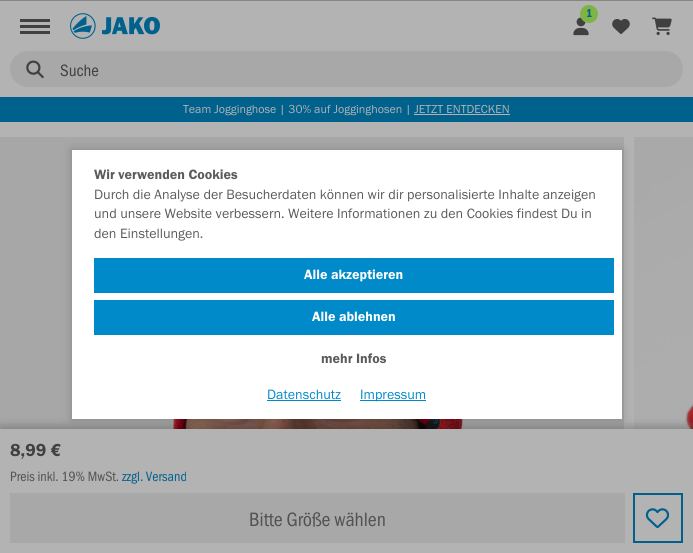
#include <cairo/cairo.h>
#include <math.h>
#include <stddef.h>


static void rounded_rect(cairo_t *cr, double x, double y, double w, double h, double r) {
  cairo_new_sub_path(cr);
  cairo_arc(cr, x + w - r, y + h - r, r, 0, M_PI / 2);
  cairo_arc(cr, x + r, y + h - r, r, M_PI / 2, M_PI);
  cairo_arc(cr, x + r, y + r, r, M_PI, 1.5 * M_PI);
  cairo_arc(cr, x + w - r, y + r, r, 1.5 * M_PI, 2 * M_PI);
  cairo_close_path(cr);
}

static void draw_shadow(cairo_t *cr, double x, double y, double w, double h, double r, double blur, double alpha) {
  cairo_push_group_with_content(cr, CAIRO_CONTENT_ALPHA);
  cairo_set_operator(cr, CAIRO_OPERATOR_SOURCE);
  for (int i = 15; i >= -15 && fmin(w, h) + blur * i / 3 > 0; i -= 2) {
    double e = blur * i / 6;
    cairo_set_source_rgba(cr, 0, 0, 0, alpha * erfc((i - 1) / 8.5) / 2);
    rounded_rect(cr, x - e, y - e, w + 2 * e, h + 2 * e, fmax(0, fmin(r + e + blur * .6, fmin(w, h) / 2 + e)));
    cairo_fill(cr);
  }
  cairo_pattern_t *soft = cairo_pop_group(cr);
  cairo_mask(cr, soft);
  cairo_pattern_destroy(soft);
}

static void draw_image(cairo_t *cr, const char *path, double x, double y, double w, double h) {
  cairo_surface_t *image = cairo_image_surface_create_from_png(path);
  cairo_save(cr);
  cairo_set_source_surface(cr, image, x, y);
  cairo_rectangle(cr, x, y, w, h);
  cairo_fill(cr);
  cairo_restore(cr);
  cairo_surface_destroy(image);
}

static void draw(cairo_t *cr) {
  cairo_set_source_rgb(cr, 179 / 255.0, 179 / 255.0, 179 / 255.0);
  cairo_paint(cr);
  cairo_set_source_rgb(cr, 134 / 255.0, 134 / 255.0, 134 / 255.0);
  cairo_rectangle(cr, 0, 0, 693, 1);
  cairo_fill(cr);
  cairo_set_source_rgb(cr, 64 / 255.0, 64 / 255.0, 64 / 255.0);
  cairo_rectangle(cr, 20, 19, 30, 3);
  cairo_fill(cr);
  cairo_rectangle(cr, 20, 25, 30, 3);
  cairo_fill(cr);
  cairo_rectangle(cr, 20, 31, 30, 3);
  cairo_fill(cr);
  draw_image(cr, "images/1.png", 70, 13, 90, 26);
  draw_image(cr, "images/2.png", 573, 17, 16, 19);
  cairo_set_source_rgb(cr, 127 / 255.0, 179 / 255.0, 67 / 255.0);
  cairo_arc(cr, 589, 14, 9, 0, 2 * M_PI);
  cairo_fill(cr);
  draw_image(cr, "images/3.png", 612, 19, 18, 15);
  draw_image(cr, "images/4.png", 652, 17, 20, 19);
  cairo_set_source_rgb(cr, 168 / 255.0, 168 / 255.0, 168 / 255.0);
  rounded_rect(cr, 10, 51, 673, 36, 18);
  cairo_fill(cr);
  draw_image(cr, "images/5.png", 26, 60, 18, 19);
  cairo_set_source_rgb(cr, 0, 97 / 255.0, 141 / 255.0);
  cairo_rectangle(cr, 0, 97, 693, 25);
  cairo_fill(cr);
  cairo_set_source_rgb(cr, 179 / 255.0, 179 / 255.0, 179 / 255.0);
  cairo_rectangle(cr, 414, 114, 96, 1);
  cairo_fill(cr);
  draw_image(cr, "images/6.png", 0, 137, 624, 292);
  draw_image(cr, "images/7.png", 634, 137, 59, 292);
  cairo_set_source_rgb(cr, 0, 0, 0);
  draw_shadow(cr, 0, 425, 693, 124, 0, 4, 0.2);
  cairo_set_source_rgb(cr, 179 / 255.0, 179 / 255.0, 179 / 255.0);
  cairo_rectangle(cr, 0, 429, 693, 124);
  cairo_fill(cr);
  cairo_set_source_rgb(cr, 168 / 255.0, 168 / 255.0, 168 / 255.0);
  cairo_rectangle(cr, 10, 493, 615, 50);
  cairo_fill(cr);
  cairo_rectangle(cr, 634, 494, 48, 48);
  cairo_set_source_rgb(cr, 0, 97 / 255.0, 141 / 255.0);
  cairo_stroke(cr);
  draw_image(cr, "images/8.png", 645, 508, 25, 20);
  cairo_set_source_rgb(cr, 0, 0, 0);
  draw_shadow(cr, 72, 150, 550, 269, 0, 5, 0.2);
  cairo_set_source_rgb(cr, 1, 1, 1);
  cairo_rectangle(cr, 72, 150, 550, 269);
  cairo_fill(cr);
  cairo_set_source_rgb(cr, 0, 138 / 255.0, 201 / 255.0);
  cairo_rectangle(cr, 94, 258, 520, 35);
  cairo_fill(cr);
  cairo_rectangle(cr, 94, 300, 520, 35);
  cairo_fill(cr);
  cairo_rectangle(cr, 267, 400, 74, 1);
  cairo_fill(cr);
  cairo_rectangle(cr, 360, 400, 66, 1);
  cairo_fill(cr);
  cairo_select_font_face(cr, "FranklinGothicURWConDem", CAIRO_FONT_SLANT_NORMAL, CAIRO_FONT_WEIGHT_NORMAL);
  cairo_set_font_size(cr, 12);
  cairo_set_source_rgb(cr, 0, 97 / 255.0, 141 / 255.0);
  cairo_move_to(cr, 586, 17);
  cairo_show_text(cr, "1");
  cairo_select_font_face(cr, "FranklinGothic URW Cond", CAIRO_FONT_SLANT_NORMAL, CAIRO_FONT_WEIGHT_NORMAL);
  cairo_set_font_size(cr, 17);
  cairo_set_source_rgb(cr, 64 / 255.0, 64 / 255.0, 64 / 255.0);
  cairo_move_to(cr, 60, 76);
  cairo_show_text(cr, "Suche");
  cairo_select_font_face(cr, "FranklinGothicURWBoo", CAIRO_FONT_SLANT_NORMAL, CAIRO_FONT_WEIGHT_NORMAL);
  cairo_set_font_size(cr, 12);
  cairo_set_source_rgb(cr, 179 / 255.0, 179 / 255.0, 179 / 255.0);
  cairo_move_to(cr, 183, 113);
  cairo_show_text(cr, "Team Jogginghose | 30% auf Jogginghosen | JETZT ENTDECKEN");
  cairo_select_font_face(cr, "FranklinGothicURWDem", CAIRO_FONT_SLANT_NORMAL, CAIRO_FONT_WEIGHT_NORMAL);
  cairo_set_font_size(cr, 18);
  cairo_set_source_rgb(cr, 64 / 255.0, 64 / 255.0, 64 / 255.0);
  cairo_move_to(cr, 10, 456);
  cairo_show_text(cr, "8,99 €");
  cairo_select_font_face(cr, "FranklinGothic URW Cond", CAIRO_FONT_SLANT_NORMAL, CAIRO_FONT_WEIGHT_NORMAL);
  cairo_set_font_size(cr, 14);
  cairo_set_source_rgb(cr, 82 / 255.0, 82 / 255.0, 85 / 255.0);
  cairo_move_to(cr, 10, 481);
  cairo_show_text(cr, "Preis inkl. 19% MwSt.");
  cairo_set_source_rgb(cr, 0, 97 / 255.0, 141 / 255.0);
  cairo_move_to(cr, 122, 481);
  cairo_show_text(cr, "zzgl. Versand");
  cairo_set_font_size(cr, 20);
  cairo_set_source_rgb(cr, 82 / 255.0, 82 / 255.0, 85 / 255.0);
  cairo_move_to(cr, 249, 526);
  cairo_show_text(cr, "Bitte Größe wählen");
  cairo_select_font_face(cr, "FranklinGothicURWDem", CAIRO_FONT_SLANT_NORMAL, CAIRO_FONT_WEIGHT_NORMAL);
  cairo_set_font_size(cr, 14);
  cairo_set_source_rgb(cr, 91 / 255.0, 91 / 255.0, 91 / 255.0);
  cairo_move_to(cr, 94, 179);
  cairo_show_text(cr, "Wir verwenden Cookies");
  cairo_select_font_face(cr, "FranklinGothicURWBoo", CAIRO_FONT_SLANT_NORMAL, CAIRO_FONT_WEIGHT_NORMAL);
  cairo_move_to(cr, 94, 199);
  cairo_show_text(cr, "Durch die Analyse der Besucherdaten können wir dir personalisierte Inhalte anzeigen");
  cairo_move_to(cr, 94, 218);
  cairo_show_text(cr, "und unsere Website verbessern. Weitere Informationen zu den Cookies findest Du in");
  cairo_move_to(cr, 94, 238);
  cairo_show_text(cr, "den Einstellungen.");
  cairo_select_font_face(cr, "FranklinGothicURWDem", CAIRO_FONT_SLANT_NORMAL, CAIRO_FONT_WEIGHT_NORMAL);
  cairo_set_source_rgb(cr, 1, 1, 1);
  cairo_move_to(cr, 304, 279);
  cairo_show_text(cr, "Alle akzeptieren");
  cairo_move_to(cr, 312, 321);
  cairo_show_text(cr, "Alle ablehnen");
  cairo_set_source_rgb(cr, 91 / 255.0, 91 / 255.0, 91 / 255.0);
  cairo_move_to(cr, 321, 363);
  cairo_show_text(cr, "mehr Infos");
  cairo_select_font_face(cr, "FranklinGothicURWBoo", CAIRO_FONT_SLANT_NORMAL, CAIRO_FONT_WEIGHT_NORMAL);
  cairo_set_source_rgb(cr, 0, 138 / 255.0, 201 / 255.0);
  cairo_move_to(cr, 267, 399);
  cairo_show_text(cr, "Datenschutz");
  cairo_move_to(cr, 360, 399);
  cairo_show_text(cr, "Impressum");
}

int main(void) {
  cairo_surface_t *surface = cairo_image_surface_create(CAIRO_FORMAT_RGB24, 693, 553);
  cairo_t *cr = cairo_create(surface);
  cairo_font_options_t *options = cairo_font_options_create();
  cairo_font_options_set_hint_metrics(options, CAIRO_HINT_METRICS_OFF);
  cairo_font_options_set_hint_style(options, CAIRO_HINT_STYLE_NONE);
  cairo_set_font_options(cr, options);
  cairo_set_miter_limit(cr, 4);
  draw(cr);
  cairo_surface_write_to_png(surface, "out.png");
  cairo_font_options_destroy(options);
  cairo_destroy(cr);
  cairo_surface_destroy(surface);
  return 0;
}
